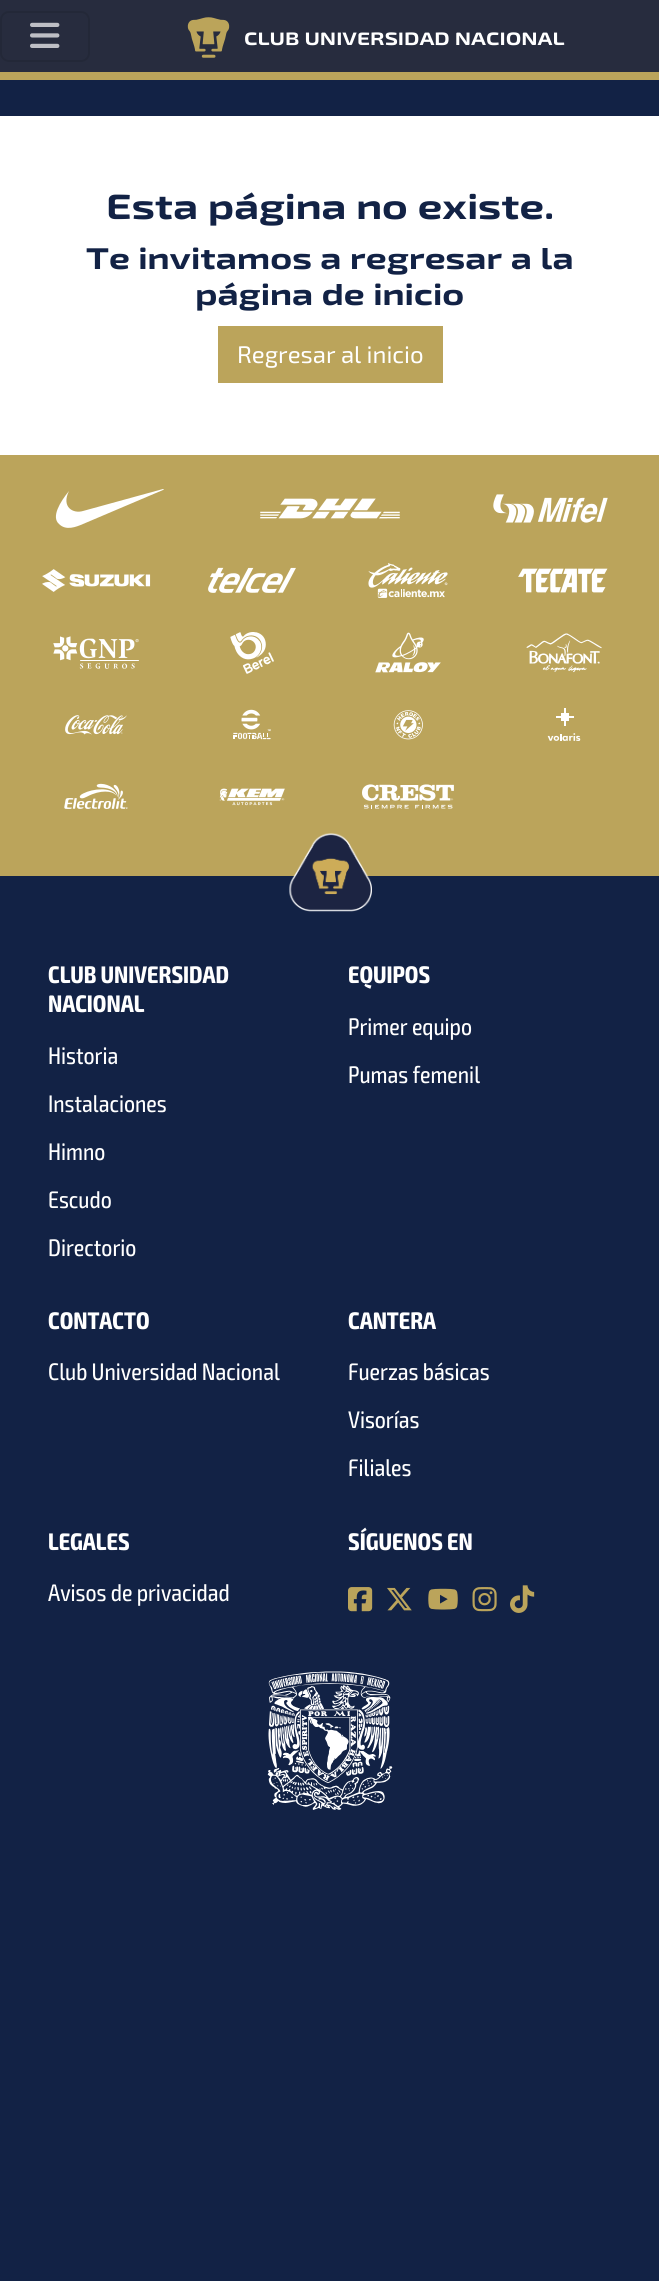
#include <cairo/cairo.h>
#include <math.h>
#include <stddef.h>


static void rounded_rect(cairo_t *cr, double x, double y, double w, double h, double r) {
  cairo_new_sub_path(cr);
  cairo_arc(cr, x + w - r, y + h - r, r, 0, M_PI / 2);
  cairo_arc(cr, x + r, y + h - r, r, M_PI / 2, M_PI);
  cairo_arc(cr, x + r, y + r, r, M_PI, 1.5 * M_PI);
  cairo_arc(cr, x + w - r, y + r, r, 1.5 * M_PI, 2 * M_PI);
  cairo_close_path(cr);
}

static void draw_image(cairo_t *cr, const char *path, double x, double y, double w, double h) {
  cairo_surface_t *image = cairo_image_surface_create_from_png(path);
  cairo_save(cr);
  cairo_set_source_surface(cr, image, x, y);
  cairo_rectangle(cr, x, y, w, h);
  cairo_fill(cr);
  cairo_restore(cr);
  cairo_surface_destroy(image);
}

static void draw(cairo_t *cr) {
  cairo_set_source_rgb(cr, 18 / 255.0, 34 / 255.0, 69 / 255.0);
  cairo_paint(cr);
  cairo_set_source_rgb(cr, 39 / 255.0, 44 / 255.0, 62 / 255.0);
  cairo_rectangle(cr, 0, 0, 659, 72);
  cairo_fill(cr);
  cairo_set_source_rgb(cr, 187 / 255.0, 164 / 255.0, 91 / 255.0);
  cairo_rectangle(cr, 0, 72, 659, 8);
  cairo_fill(cr);
  rounded_rect(cr, 1, 12, 88, 49, 8);
  cairo_set_source_rgb(cr, 35 / 255.0, 40 / 255.0, 56 / 255.0);
  cairo_stroke(cr);
  draw_image(cr, "images/1.png", 30, 22, 30, 26);
  draw_image(cr, "images/2.png", 187, 17, 43, 41);
  cairo_set_source_rgb(cr, 1, 1, 1);
  cairo_rectangle(cr, 0, 116, 659, 339);
  cairo_fill(cr);
  cairo_set_source_rgb(cr, 187 / 255.0, 164 / 255.0, 91 / 255.0);
  cairo_rectangle(cr, 218, 326, 225, 57);
  cairo_fill(cr);
  cairo_rectangle(cr, 0, 455, 659, 421);
  cairo_fill(cr);
  cairo_set_source_rgb(cr, 1, 1, 1);
  cairo_new_path(cr);
  cairo_move_to(cr, 69, 491);
  cairo_curve_to(cr, 60, 502, 51, 517, 59, 524);
  cairo_curve_to(cr, 66, 531, 76, 527, 83, 524);
  cairo_line_to(cr, 163, 490);
  cairo_curve_to(cr, 164, 490, 164, 489, 163, 489);
  cairo_line_to(cr, 83, 511);
  cairo_curve_to(cr, 73, 514, 61, 507, 69, 491);
  cairo_fill(cr);
  draw_image(cr, "images/3.png", 260, 498, 140, 21);
  draw_image(cr, "images/4.png", 493, 494, 115, 29);
  draw_image(cr, "images/5.png", 42, 569, 109, 23);
  draw_image(cr, "images/6.png", 208, 567, 88, 26);
  draw_image(cr, "images/7.png", 368, 563, 80, 35);
  draw_image(cr, "images/8.png", 518, 568, 90, 25);
  draw_image(cr, "images/9.png", 53, 636, 86, 33);
  draw_image(cr, "images/10.png", 230, 632, 44, 42);
  draw_image(cr, "images/11.png", 375, 632, 66, 41);
  draw_image(cr, "images/12.png", 526, 633, 76, 40);
  draw_image(cr, "images/13.png", 65, 715, 62, 20);
  draw_image(cr, "images/14.png", 233, 709, 38, 31);
  draw_image(cr, "images/15.png", 393, 710, 30, 30);
  draw_image(cr, "images/16.png", 547, 708, 34, 33);
  draw_image(cr, "images/17.png", 64, 783, 64, 26);
  draw_image(cr, "images/18.png", 219, 788, 66, 18);
  draw_image(cr, "images/19.png", 362, 784, 92, 25);
  draw_image(cr, "images/20.png", 289, 833, 83, 79);
  draw_image(cr, "images/21.png", 348, 1587, 25, 25);
  draw_image(cr, "images/22.png", 387, 1587, 25, 24);
  draw_image(cr, "images/23.png", 428, 1588, 30, 22);
  draw_image(cr, "images/24.png", 472, 1587, 25, 25);
  draw_image(cr, "images/25.png", 510, 1585, 25, 28);
  draw_image(cr, "images/26.png", 267, 1671, 126, 139);
  cairo_select_font_face(cr, "Exo 2", CAIRO_FONT_SLANT_NORMAL, CAIRO_FONT_WEIGHT_BOLD);
  cairo_set_font_size(cr, 18);
  cairo_move_to(cr, 244, 45);
  cairo_show_text(cr, "CLUB UNIVERSIDAD NACIONAL");
  cairo_set_font_size(cr, 35.2);
  cairo_set_source_rgb(cr, 18 / 255.0, 34 / 255.0, 69 / 255.0);
  cairo_move_to(cr, 106, 219);
  cairo_show_text(cr, "Esta página no existe.");
  cairo_set_font_size(cr, 30);
  cairo_move_to(cr, 86, 269);
  cairo_show_text(cr, "Te invitamos a regresar a la");
  cairo_move_to(cr, 195, 305);
  cairo_show_text(cr, "página de inicio");
  cairo_select_font_face(cr, "Exo 2", CAIRO_FONT_SLANT_NORMAL, CAIRO_FONT_WEIGHT_NORMAL);
  cairo_set_font_size(cr, 24);
  cairo_set_source_rgb(cr, 1, 1, 1);
  cairo_move_to(cr, 237, 363);
  cairo_show_text(cr, "Regresar al inicio");
  cairo_select_font_face(cr, "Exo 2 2", CAIRO_FONT_SLANT_NORMAL, CAIRO_FONT_WEIGHT_BOLD);
  cairo_move_to(cr, 48, 983);
  cairo_show_text(cr, "CLUB UNIVERSIDAD");
  cairo_move_to(cr, 48, 1012);
  cairo_show_text(cr, "NACIONAL");
  cairo_select_font_face(cr, "Exo 2 2", CAIRO_FONT_SLANT_NORMAL, CAIRO_FONT_WEIGHT_NORMAL);
  cairo_move_to(cr, 48, 1064);
  cairo_show_text(cr, "Historia");
  cairo_move_to(cr, 48, 1112);
  cairo_show_text(cr, "Instalaciones");
  cairo_move_to(cr, 48, 1160);
  cairo_show_text(cr, "Himno");
  cairo_move_to(cr, 48, 1208);
  cairo_show_text(cr, "Escudo");
  cairo_move_to(cr, 48, 1256);
  cairo_show_text(cr, "Directorio");
  cairo_select_font_face(cr, "Exo 2 2", CAIRO_FONT_SLANT_NORMAL, CAIRO_FONT_WEIGHT_BOLD);
  cairo_move_to(cr, 348, 983);
  cairo_show_text(cr, "EQUIPOS");
  cairo_select_font_face(cr, "Exo 2 2", CAIRO_FONT_SLANT_NORMAL, CAIRO_FONT_WEIGHT_NORMAL);
  cairo_move_to(cr, 348, 1035);
  cairo_show_text(cr, "Primer equipo");
  cairo_move_to(cr, 348, 1083);
  cairo_show_text(cr, "Pumas femenil");
  cairo_select_font_face(cr, "Exo 2 2", CAIRO_FONT_SLANT_NORMAL, CAIRO_FONT_WEIGHT_BOLD);
  cairo_move_to(cr, 48, 1329);
  cairo_show_text(cr, "CONTACTO");
  cairo_select_font_face(cr, "Exo 2 2", CAIRO_FONT_SLANT_NORMAL, CAIRO_FONT_WEIGHT_NORMAL);
  cairo_move_to(cr, 48, 1380);
  cairo_show_text(cr, "Club Universidad Nacional");
  cairo_select_font_face(cr, "Exo 2 2", CAIRO_FONT_SLANT_NORMAL, CAIRO_FONT_WEIGHT_BOLD);
  cairo_move_to(cr, 348, 1329);
  cairo_show_text(cr, "CANTERA");
  cairo_select_font_face(cr, "Exo 2 2", CAIRO_FONT_SLANT_NORMAL, CAIRO_FONT_WEIGHT_NORMAL);
  cairo_move_to(cr, 348, 1380);
  cairo_show_text(cr, "Fuerzas básicas");
  cairo_move_to(cr, 348, 1428);
  cairo_show_text(cr, "Visorías");
  cairo_move_to(cr, 348, 1476);
  cairo_show_text(cr, "Filiales");
  cairo_select_font_face(cr, "Exo 2 2", CAIRO_FONT_SLANT_NORMAL, CAIRO_FONT_WEIGHT_BOLD);
  cairo_move_to(cr, 48, 1550);
  cairo_show_text(cr, "LEGALES");
  cairo_select_font_face(cr, "Exo 2 2", CAIRO_FONT_SLANT_NORMAL, CAIRO_FONT_WEIGHT_NORMAL);
  cairo_move_to(cr, 48, 1601);
  cairo_show_text(cr, "Avisos de privacidad");
  cairo_select_font_face(cr, "Exo 2 2", CAIRO_FONT_SLANT_NORMAL, CAIRO_FONT_WEIGHT_BOLD);
  cairo_move_to(cr, 348, 1550);
  cairo_show_text(cr, "SÍGUENOS EN");
}

int main(void) {
  cairo_surface_t *surface = cairo_image_surface_create(CAIRO_FORMAT_RGB24, 659, 2281);
  cairo_t *cr = cairo_create(surface);
  cairo_font_options_t *options = cairo_font_options_create();
  cairo_font_options_set_hint_metrics(options, CAIRO_HINT_METRICS_OFF);
  cairo_font_options_set_hint_style(options, CAIRO_HINT_STYLE_NONE);
  cairo_set_font_options(cr, options);
  cairo_set_miter_limit(cr, 4);
  draw(cr);
  cairo_surface_write_to_png(surface, "out.png");
  cairo_font_options_destroy(options);
  cairo_destroy(cr);
  cairo_surface_destroy(surface);
  return 0;
}
